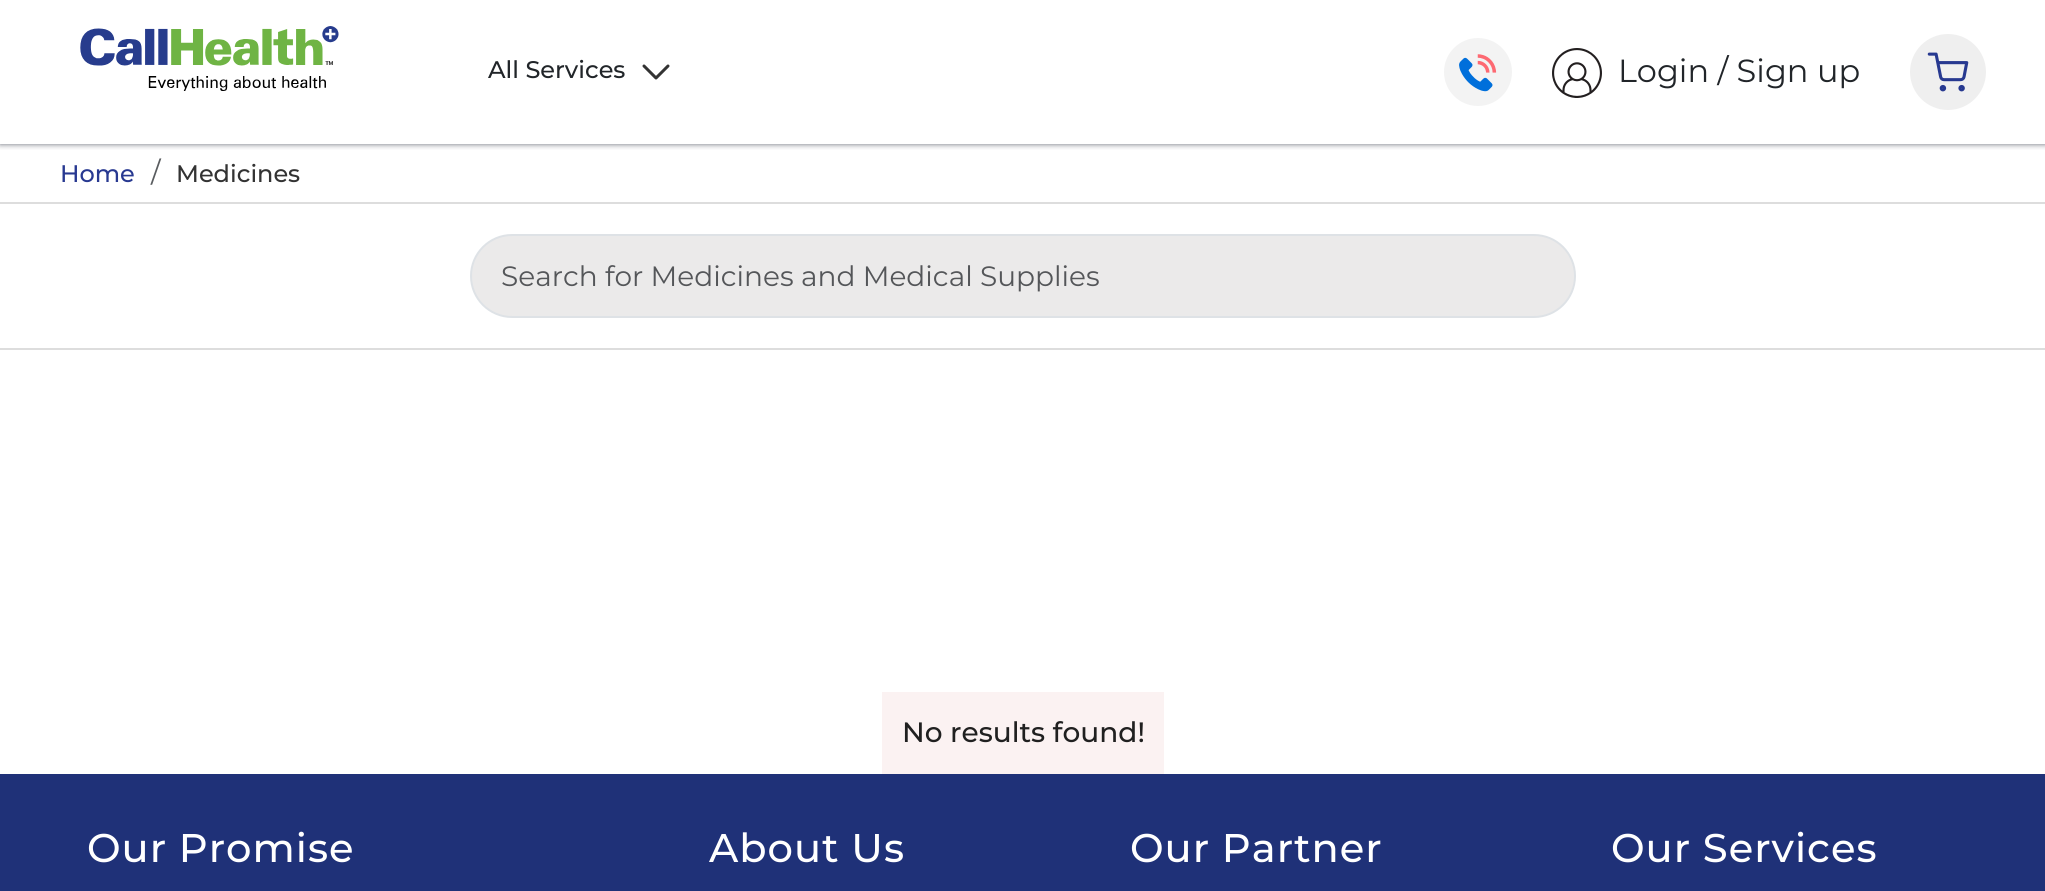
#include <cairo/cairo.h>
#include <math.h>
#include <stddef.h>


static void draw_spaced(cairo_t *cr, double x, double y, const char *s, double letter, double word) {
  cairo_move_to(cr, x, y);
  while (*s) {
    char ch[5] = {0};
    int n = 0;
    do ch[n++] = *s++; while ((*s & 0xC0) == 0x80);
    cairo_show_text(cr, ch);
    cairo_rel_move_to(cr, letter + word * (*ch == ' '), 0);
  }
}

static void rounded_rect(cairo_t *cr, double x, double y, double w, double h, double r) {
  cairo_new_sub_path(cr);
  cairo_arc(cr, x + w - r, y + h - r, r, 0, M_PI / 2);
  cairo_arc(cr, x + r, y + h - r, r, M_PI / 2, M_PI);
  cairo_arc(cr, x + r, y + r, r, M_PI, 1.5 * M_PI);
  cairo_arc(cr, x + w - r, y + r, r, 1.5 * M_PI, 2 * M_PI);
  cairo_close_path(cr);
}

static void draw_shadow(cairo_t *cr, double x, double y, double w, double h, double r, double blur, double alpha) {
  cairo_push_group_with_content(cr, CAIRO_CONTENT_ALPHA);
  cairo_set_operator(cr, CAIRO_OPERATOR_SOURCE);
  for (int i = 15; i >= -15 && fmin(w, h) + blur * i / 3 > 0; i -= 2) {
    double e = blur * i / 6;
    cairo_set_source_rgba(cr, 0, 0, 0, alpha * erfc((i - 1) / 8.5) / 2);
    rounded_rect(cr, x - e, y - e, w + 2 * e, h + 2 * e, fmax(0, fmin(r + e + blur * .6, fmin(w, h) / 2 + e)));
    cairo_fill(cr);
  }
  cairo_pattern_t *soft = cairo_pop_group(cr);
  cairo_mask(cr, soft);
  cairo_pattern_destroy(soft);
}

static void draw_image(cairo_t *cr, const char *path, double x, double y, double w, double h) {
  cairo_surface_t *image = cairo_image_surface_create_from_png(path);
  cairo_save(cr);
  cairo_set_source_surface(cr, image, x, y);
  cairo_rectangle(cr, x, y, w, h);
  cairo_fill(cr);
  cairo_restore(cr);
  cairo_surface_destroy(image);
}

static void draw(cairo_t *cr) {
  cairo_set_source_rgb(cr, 1, 1, 1);
  cairo_paint(cr);
  cairo_save(cr);
  cairo_rectangle(cr, 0, 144, 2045, 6);
  cairo_clip(cr);
  cairo_set_source_rgb(cr, 101 / 255.0, 104 / 255.0, 116 / 255.0);
  draw_shadow(cr, 0, 0, 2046, 144, 0, 3, 1);
  cairo_restore(cr);
  draw_image(cr, "images/1.png", 80, 26, 259, 65);
  cairo_new_path(cr);
  cairo_move_to(cr, 644, 66);
  cairo_line_to(cr, 656, 78);
  cairo_line_to(cr, 668, 66);
  cairo_set_source_rgb(cr, 51 / 255.0, 51 / 255.0, 51 / 255.0);
  cairo_set_line_width(cr, 3);
  cairo_set_line_cap(cr, CAIRO_LINE_CAP_ROUND);
  cairo_set_line_join(cr, CAIRO_LINE_JOIN_ROUND);
  cairo_stroke(cr);
  cairo_set_source_rgb(cr, 243 / 255.0, 243 / 255.0, 243 / 255.0);
  cairo_arc(cr, 1478, 72, 34, 0, 2 * M_PI);
  cairo_fill(cr);
  draw_image(cr, "images/2.png", 1459, 54, 38, 38);
  draw_image(cr, "images/3.png", 1552, 48, 50, 50);
  cairo_set_source_rgb(cr, 239 / 255.0, 239 / 255.0, 239 / 255.0);
  cairo_arc(cr, 1948, 72, 38, 0, 2 * M_PI);
  cairo_fill(cr);
  draw_image(cr, "images/4.png", 1927, 52, 42, 40);
  cairo_set_source_rgb(cr, 221 / 255.0, 221 / 255.0, 221 / 255.0);
  cairo_rectangle(cr, 0, 202, 2045, 2);
  cairo_fill(cr);
  cairo_rectangle(cr, 0, 348, 2045, 2);
  cairo_fill(cr);
  cairo_set_source_rgb(cr, 235 / 255.0, 234 / 255.0, 234 / 255.0);
  rounded_rect(cr, 471, 235, 1104, 82, 41);
  cairo_fill_preserve(cr);
  cairo_set_source_rgb(cr, 222 / 255.0, 226 / 255.0, 230 / 255.0);
  cairo_set_line_width(cr, 2);
  cairo_set_line_cap(cr, CAIRO_LINE_CAP_BUTT);
  cairo_set_line_join(cr, CAIRO_LINE_JOIN_MITER);
  cairo_stroke(cr);
  cairo_set_source_rgb(cr, 251 / 255.0, 242 / 255.0, 242 / 255.0);
  cairo_rectangle(cr, 882, 692, 282, 82);
  cairo_fill(cr);
  cairo_set_source_rgb(cr, 31 / 255.0, 49 / 255.0, 120 / 255.0);
  cairo_rectangle(cr, 0, 774, 2045, 117);
  cairo_fill(cr);
  cairo_select_font_face(cr, "Montserrat Medium", CAIRO_FONT_SLANT_NORMAL, CAIRO_FONT_WEIGHT_NORMAL);
  cairo_set_font_size(cr, 24);
  cairo_set_source_rgb(cr, 33 / 255.0, 37 / 255.0, 41 / 255.0);
  cairo_move_to(cr, 488, 78);
  cairo_show_text(cr, "All Services");
  cairo_select_font_face(cr, "Montserrat", CAIRO_FONT_SLANT_NORMAL, CAIRO_FONT_WEIGHT_NORMAL);
  cairo_set_font_size(cr, 32);
  cairo_move_to(cr, 1618, 82);
  cairo_show_text(cr, "Login / Sign up");
  cairo_select_font_face(cr, "Montserrat Medium", CAIRO_FONT_SLANT_NORMAL, CAIRO_FONT_WEIGHT_NORMAL);
  cairo_set_font_size(cr, 24);
  cairo_set_source_rgb(cr, 40 / 255.0, 57 / 255.0, 145 / 255.0);
  cairo_move_to(cr, 60, 182);
  cairo_show_text(cr, "Home");
  cairo_select_font_face(cr, "Montserrat", CAIRO_FONT_SLANT_NORMAL, CAIRO_FONT_WEIGHT_NORMAL);
  cairo_set_font_size(cr, 28);
  cairo_set_source_rgb(cr, 89 / 255.0, 92 / 255.0, 95 / 255.0);
  cairo_move_to(cr, 151, 182);
  cairo_show_text(cr, "/");
  cairo_select_font_face(cr, "Montserrat Medium", CAIRO_FONT_SLANT_NORMAL, CAIRO_FONT_WEIGHT_NORMAL);
  cairo_set_font_size(cr, 24);
  cairo_set_source_rgb(cr, 51 / 255.0, 51 / 255.0, 51 / 255.0);
  cairo_move_to(cr, 176, 182);
  cairo_show_text(cr, "Medicines");
  cairo_select_font_face(cr, "Montserrat", CAIRO_FONT_SLANT_NORMAL, CAIRO_FONT_WEIGHT_NORMAL);
  cairo_set_font_size(cr, 28);
  cairo_set_source_rgb(cr, 84 / 255.0, 86 / 255.0, 89 / 255.0);
  cairo_move_to(cr, 501, 286);
  cairo_show_text(cr, "Search for Medicines and Medical Supplies");
  cairo_select_font_face(cr, "Montserrat Medium", CAIRO_FONT_SLANT_NORMAL, CAIRO_FONT_WEIGHT_NORMAL);
  cairo_set_source_rgb(cr, 32 / 255.0, 32 / 255.0, 32 / 255.0);
  cairo_move_to(cr, 902, 742);
  cairo_show_text(cr, "No results found!");
  cairo_set_font_size(cr, 40);
  cairo_set_source_rgb(cr, 1, 1, 1);
  draw_spaced(cr, 87, 862, "Our Promise", 1, 0);
  draw_spaced(cr, 709, 862, "About Us", 1, 0);
  draw_spaced(cr, 1130, 862, "Our Partner", 1, 0);
  draw_spaced(cr, 1611, 862, "Our Services", 1, 0);
}

int main(void) {
  cairo_surface_t *surface = cairo_image_surface_create(CAIRO_FORMAT_RGB24, 2045, 891);
  cairo_t *cr = cairo_create(surface);
  cairo_font_options_t *options = cairo_font_options_create();
  cairo_font_options_set_hint_metrics(options, CAIRO_HINT_METRICS_OFF);
  cairo_font_options_set_hint_style(options, CAIRO_HINT_STYLE_NONE);
  cairo_set_font_options(cr, options);
  cairo_set_miter_limit(cr, 4);
  draw(cr);
  cairo_surface_write_to_png(surface, "out.png");
  cairo_font_options_destroy(options);
  cairo_destroy(cr);
  cairo_surface_destroy(surface);
  return 0;
}
